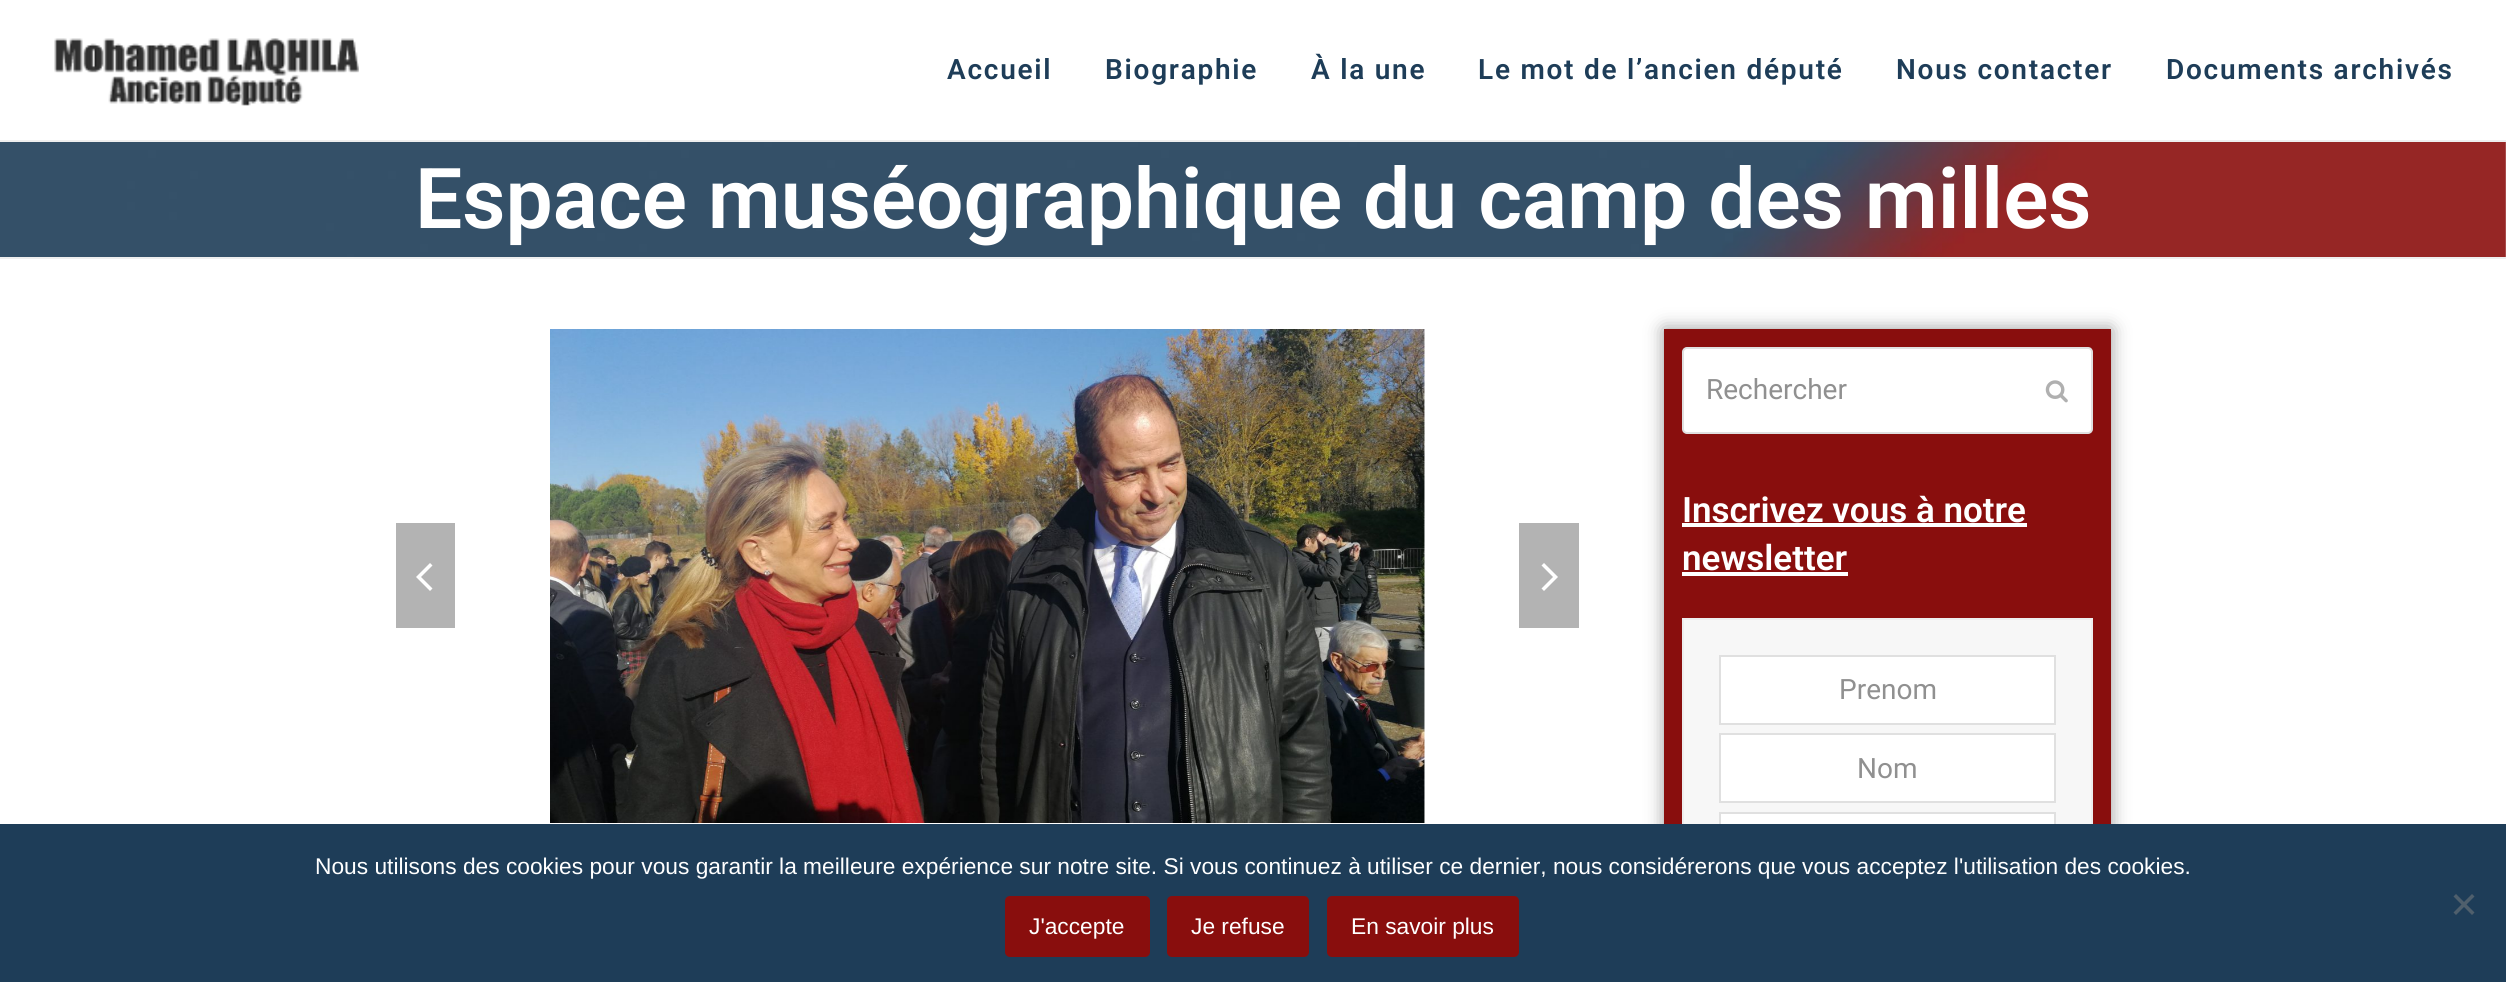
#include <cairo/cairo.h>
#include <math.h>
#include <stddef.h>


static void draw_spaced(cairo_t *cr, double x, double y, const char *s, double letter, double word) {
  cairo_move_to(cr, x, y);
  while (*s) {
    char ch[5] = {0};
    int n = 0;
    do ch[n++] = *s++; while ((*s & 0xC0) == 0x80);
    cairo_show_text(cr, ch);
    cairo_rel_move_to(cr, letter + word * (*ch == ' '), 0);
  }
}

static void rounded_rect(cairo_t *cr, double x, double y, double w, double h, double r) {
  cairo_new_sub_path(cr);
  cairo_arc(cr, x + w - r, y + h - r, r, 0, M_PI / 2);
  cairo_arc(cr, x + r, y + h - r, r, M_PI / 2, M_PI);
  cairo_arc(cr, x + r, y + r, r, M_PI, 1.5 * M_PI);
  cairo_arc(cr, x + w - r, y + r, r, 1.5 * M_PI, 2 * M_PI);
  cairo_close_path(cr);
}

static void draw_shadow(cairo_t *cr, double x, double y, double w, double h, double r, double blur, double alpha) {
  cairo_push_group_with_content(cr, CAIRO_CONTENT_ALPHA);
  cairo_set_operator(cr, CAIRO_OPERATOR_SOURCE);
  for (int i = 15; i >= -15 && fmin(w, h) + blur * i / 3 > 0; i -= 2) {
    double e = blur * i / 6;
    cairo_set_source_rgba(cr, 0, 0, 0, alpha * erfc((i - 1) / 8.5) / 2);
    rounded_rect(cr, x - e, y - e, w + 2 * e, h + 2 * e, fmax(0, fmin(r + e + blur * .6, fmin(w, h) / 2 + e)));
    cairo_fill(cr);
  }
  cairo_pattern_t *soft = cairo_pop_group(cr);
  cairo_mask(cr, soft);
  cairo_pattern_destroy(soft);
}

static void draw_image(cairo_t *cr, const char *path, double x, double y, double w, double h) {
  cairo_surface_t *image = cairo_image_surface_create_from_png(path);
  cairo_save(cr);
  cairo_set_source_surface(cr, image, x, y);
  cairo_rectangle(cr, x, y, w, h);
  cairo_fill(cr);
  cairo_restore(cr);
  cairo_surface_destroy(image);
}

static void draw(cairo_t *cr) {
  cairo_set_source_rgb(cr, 1, 1, 1);
  cairo_paint(cr);
  draw_image(cr, "images/1.png", 54, 38, 305, 68);
  draw_image(cr, "images/2.png", 0, 142, 2506, 115);
  cairo_set_source_rgb(cr, 238 / 255.0, 238 / 255.0, 238 / 255.0);
  cairo_rectangle(cr, 0, 140, 2506, 2);
  cairo_fill(cr);
  cairo_rectangle(cr, 0, 257, 2506, 2);
  cairo_fill(cr);
  draw_image(cr, "images/3.png", 550, 329, 875, 494);
  cairo_set_source_rgb(cr, 179 / 255.0, 179 / 255.0, 179 / 255.0);
  cairo_rectangle(cr, 396, 523, 59, 105);
  cairo_fill(cr);
  cairo_set_source_rgb(cr, 1, 1, 1);
  cairo_new_path(cr);
  cairo_move_to(cr, 432.5, 565.5);
  cairo_line_to(cr, 430, 563);
  cairo_line_to(cr, 416, 577);
  cairo_line_to(cr, 430, 591);
  cairo_line_to(cr, 432.5, 588.5);
  cairo_line_to(cr, 421, 577);
  cairo_close_path(cr);
  cairo_fill(cr);
  cairo_set_source_rgb(cr, 179 / 255.0, 179 / 255.0, 179 / 255.0);
  cairo_rectangle(cr, 1519, 523, 60, 105);
  cairo_fill(cr);
  cairo_set_source_rgb(cr, 1, 1, 1);
  cairo_new_path(cr);
  cairo_move_to(cr, 1541.5, 588.5);
  cairo_line_to(cr, 1544, 591);
  cairo_line_to(cr, 1558, 577);
  cairo_line_to(cr, 1544, 563);
  cairo_line_to(cr, 1541.5, 565.5);
  cairo_line_to(cr, 1553, 577);
  cairo_close_path(cr);
  cairo_fill(cr);
  cairo_set_source_rgb(cr, 153 / 255.0, 153 / 255.0, 153 / 255.0);
  draw_shadow(cr, 1664, 329, 447, 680, 0, 9, 1);
  cairo_set_source_rgb(cr, 137 / 255.0, 14 / 255.0, 13 / 255.0);
  cairo_rectangle(cr, 1664, 329, 447, 495);
  cairo_fill(cr);
  cairo_set_source_rgb(cr, 1, 1, 1);
  rounded_rect(cr, 1683, 348, 409, 85, 4);
  cairo_fill_preserve(cr);
  cairo_set_source_rgb(cr, 224 / 255.0, 224 / 255.0, 224 / 255.0);
  cairo_stroke(cr);
  draw_image(cr, "images/4.png", 2045, 380, 23, 23);
  cairo_set_source_rgb(cr, 1, 1, 1);
  cairo_rectangle(cr, 1682, 523, 345, 4);
  cairo_fill(cr);
  cairo_rectangle(cr, 1682, 572, 166, 4);
  cairo_fill(cr);
  cairo_set_source_rgb(cr, 247 / 255.0, 247 / 255.0, 247 / 255.0);
  cairo_rectangle(cr, 1684, 620, 407, 204);
  cairo_fill(cr);
  cairo_rectangle(cr, 1683, 619, 409, 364);
  cairo_set_source_rgb(cr, 238 / 255.0, 238 / 255.0, 238 / 255.0);
  cairo_stroke(cr);
  cairo_set_source_rgb(cr, 1, 1, 1);
  cairo_rectangle(cr, 1720, 656, 335, 68);
  cairo_fill_preserve(cr);
  cairo_set_source_rgb(cr, 224 / 255.0, 224 / 255.0, 224 / 255.0);
  cairo_stroke(cr);
  cairo_set_source_rgb(cr, 1, 1, 1);
  cairo_rectangle(cr, 1720, 734, 335, 68);
  cairo_fill_preserve(cr);
  cairo_set_source_rgb(cr, 224 / 255.0, 224 / 255.0, 224 / 255.0);
  cairo_stroke(cr);
  cairo_set_source_rgb(cr, 1, 1, 1);
  cairo_rectangle(cr, 1721, 814, 333, 10);
  cairo_fill(cr);
  cairo_rectangle(cr, 1720, 813, 335, 68);
  cairo_set_source_rgb(cr, 224 / 255.0, 224 / 255.0, 224 / 255.0);
  cairo_stroke(cr);
  cairo_set_source_rgb(cr, 30 / 255.0, 61 / 255.0, 88 / 255.0);
  cairo_rectangle(cr, 0, 824, 2506, 158);
  cairo_fill(cr);
  cairo_set_source_rgb(cr, 79 / 255.0, 95 / 255.0, 108 / 255.0);
  cairo_new_path(cr);
  cairo_move_to(cr, 2472, 894);
  cairo_line_to(cr, 2474.5, 896.5);
  cairo_line_to(cr, 2456, 915);
  cairo_line_to(cr, 2453.5, 912.5);
  cairo_close_path(cr);
  cairo_fill(cr);
  cairo_new_path(cr);
  cairo_move_to(cr, 2453.5, 896.5);
  cairo_line_to(cr, 2456, 894);
  cairo_line_to(cr, 2474.5, 912.5);
  cairo_line_to(cr, 2472, 915);
  cairo_close_path(cr);
  cairo_fill(cr);
  cairo_set_source_rgb(cr, 137 / 255.0, 14 / 255.0, 13 / 255.0);
  rounded_rect(cr, 1005, 896, 145, 61, 5);
  cairo_fill(cr);
  rounded_rect(cr, 1167, 896, 142, 61, 5);
  cairo_fill(cr);
  rounded_rect(cr, 1327, 896, 192, 61, 5);
  cairo_fill(cr);
  cairo_select_font_face(cr, "Roboto SemiBold", CAIRO_FONT_SLANT_NORMAL, CAIRO_FONT_WEIGHT_NORMAL);
  cairo_set_font_size(cr, 28);
  cairo_set_source_rgb(cr, 30 / 255.0, 61 / 255.0, 88 / 255.0);
  draw_spaced(cr, 947, 79, "Accueil", 1.75, 0);
  draw_spaced(cr, 1105, 79, "Biographie", 1.75, 0);
  draw_spaced(cr, 1311, 79, "À la une", 1.75, 0);
  draw_spaced(cr, 1478, 79, "Le mot de l’ancien député", 1.75, 0);
  draw_spaced(cr, 1896, 79, "Nous contacter", 1.75, 0);
  draw_spaced(cr, 2166, 79, "Documents archivés", 1.75, 0);
  cairo_set_font_size(cr, 84);
  cairo_set_source_rgb(cr, 1, 1, 1);
  cairo_move_to(cr, 415, 228);
  cairo_show_text(cr, "Espace muséographique du camp des milles");
  cairo_select_font_face(cr, "Roboto", CAIRO_FONT_SLANT_NORMAL, CAIRO_FONT_WEIGHT_NORMAL);
  cairo_set_font_size(cr, 28);
  cairo_set_source_rgb(cr, 144 / 255.0, 144 / 255.0, 144 / 255.0);
  cairo_move_to(cr, 1706, 399);
  cairo_show_text(cr, "Rechercher");
  cairo_select_font_face(cr, "Roboto SemiBold", CAIRO_FONT_SLANT_NORMAL, CAIRO_FONT_WEIGHT_NORMAL);
  cairo_set_font_size(cr, 35);
  cairo_set_source_rgb(cr, 1, 1, 1);
  cairo_move_to(cr, 1682, 522);
  cairo_show_text(cr, "Inscrivez vous à notre");
  cairo_move_to(cr, 1682, 570);
  cairo_show_text(cr, "newsletter");
  cairo_select_font_face(cr, "Roboto", CAIRO_FONT_SLANT_NORMAL, CAIRO_FONT_WEIGHT_NORMAL);
  cairo_set_font_size(cr, 28);
  cairo_set_source_rgb(cr, 144 / 255.0, 144 / 255.0, 144 / 255.0);
  cairo_move_to(cr, 1839, 699);
  cairo_show_text(cr, "Prenom");
  cairo_move_to(cr, 1857, 778);
  cairo_show_text(cr, "Nom");
  cairo_select_font_face(cr, "Liberation Sans", CAIRO_FONT_SLANT_NORMAL, CAIRO_FONT_WEIGHT_NORMAL);
  cairo_set_font_size(cr, 22.75);
  cairo_set_source_rgb(cr, 1, 1, 1);
  cairo_move_to(cr, 315, 874);
  cairo_show_text(cr, "Nous utilisons des cookies pour vous garantir la meilleure expérience sur notre site. Si vous continuez à utiliser ce dernier, nous considérerons que vous acceptez l'utilisation des cookies.");
  cairo_move_to(cr, 1029, 934);
  cairo_show_text(cr, "J'accepte");
  cairo_move_to(cr, 1191, 934);
  cairo_show_text(cr, "Je refuse");
  cairo_move_to(cr, 1351, 934);
  cairo_show_text(cr, "En savoir plus");
}

int main(void) {
  cairo_surface_t *surface = cairo_image_surface_create(CAIRO_FORMAT_RGB24, 2506, 982);
  cairo_t *cr = cairo_create(surface);
  cairo_font_options_t *options = cairo_font_options_create();
  cairo_font_options_set_hint_metrics(options, CAIRO_HINT_METRICS_OFF);
  cairo_font_options_set_hint_style(options, CAIRO_HINT_STYLE_NONE);
  cairo_set_font_options(cr, options);
  cairo_set_miter_limit(cr, 4);
  draw(cr);
  cairo_surface_write_to_png(surface, "out.png");
  cairo_font_options_destroy(options);
  cairo_destroy(cr);
  cairo_surface_destroy(surface);
  return 0;
}
